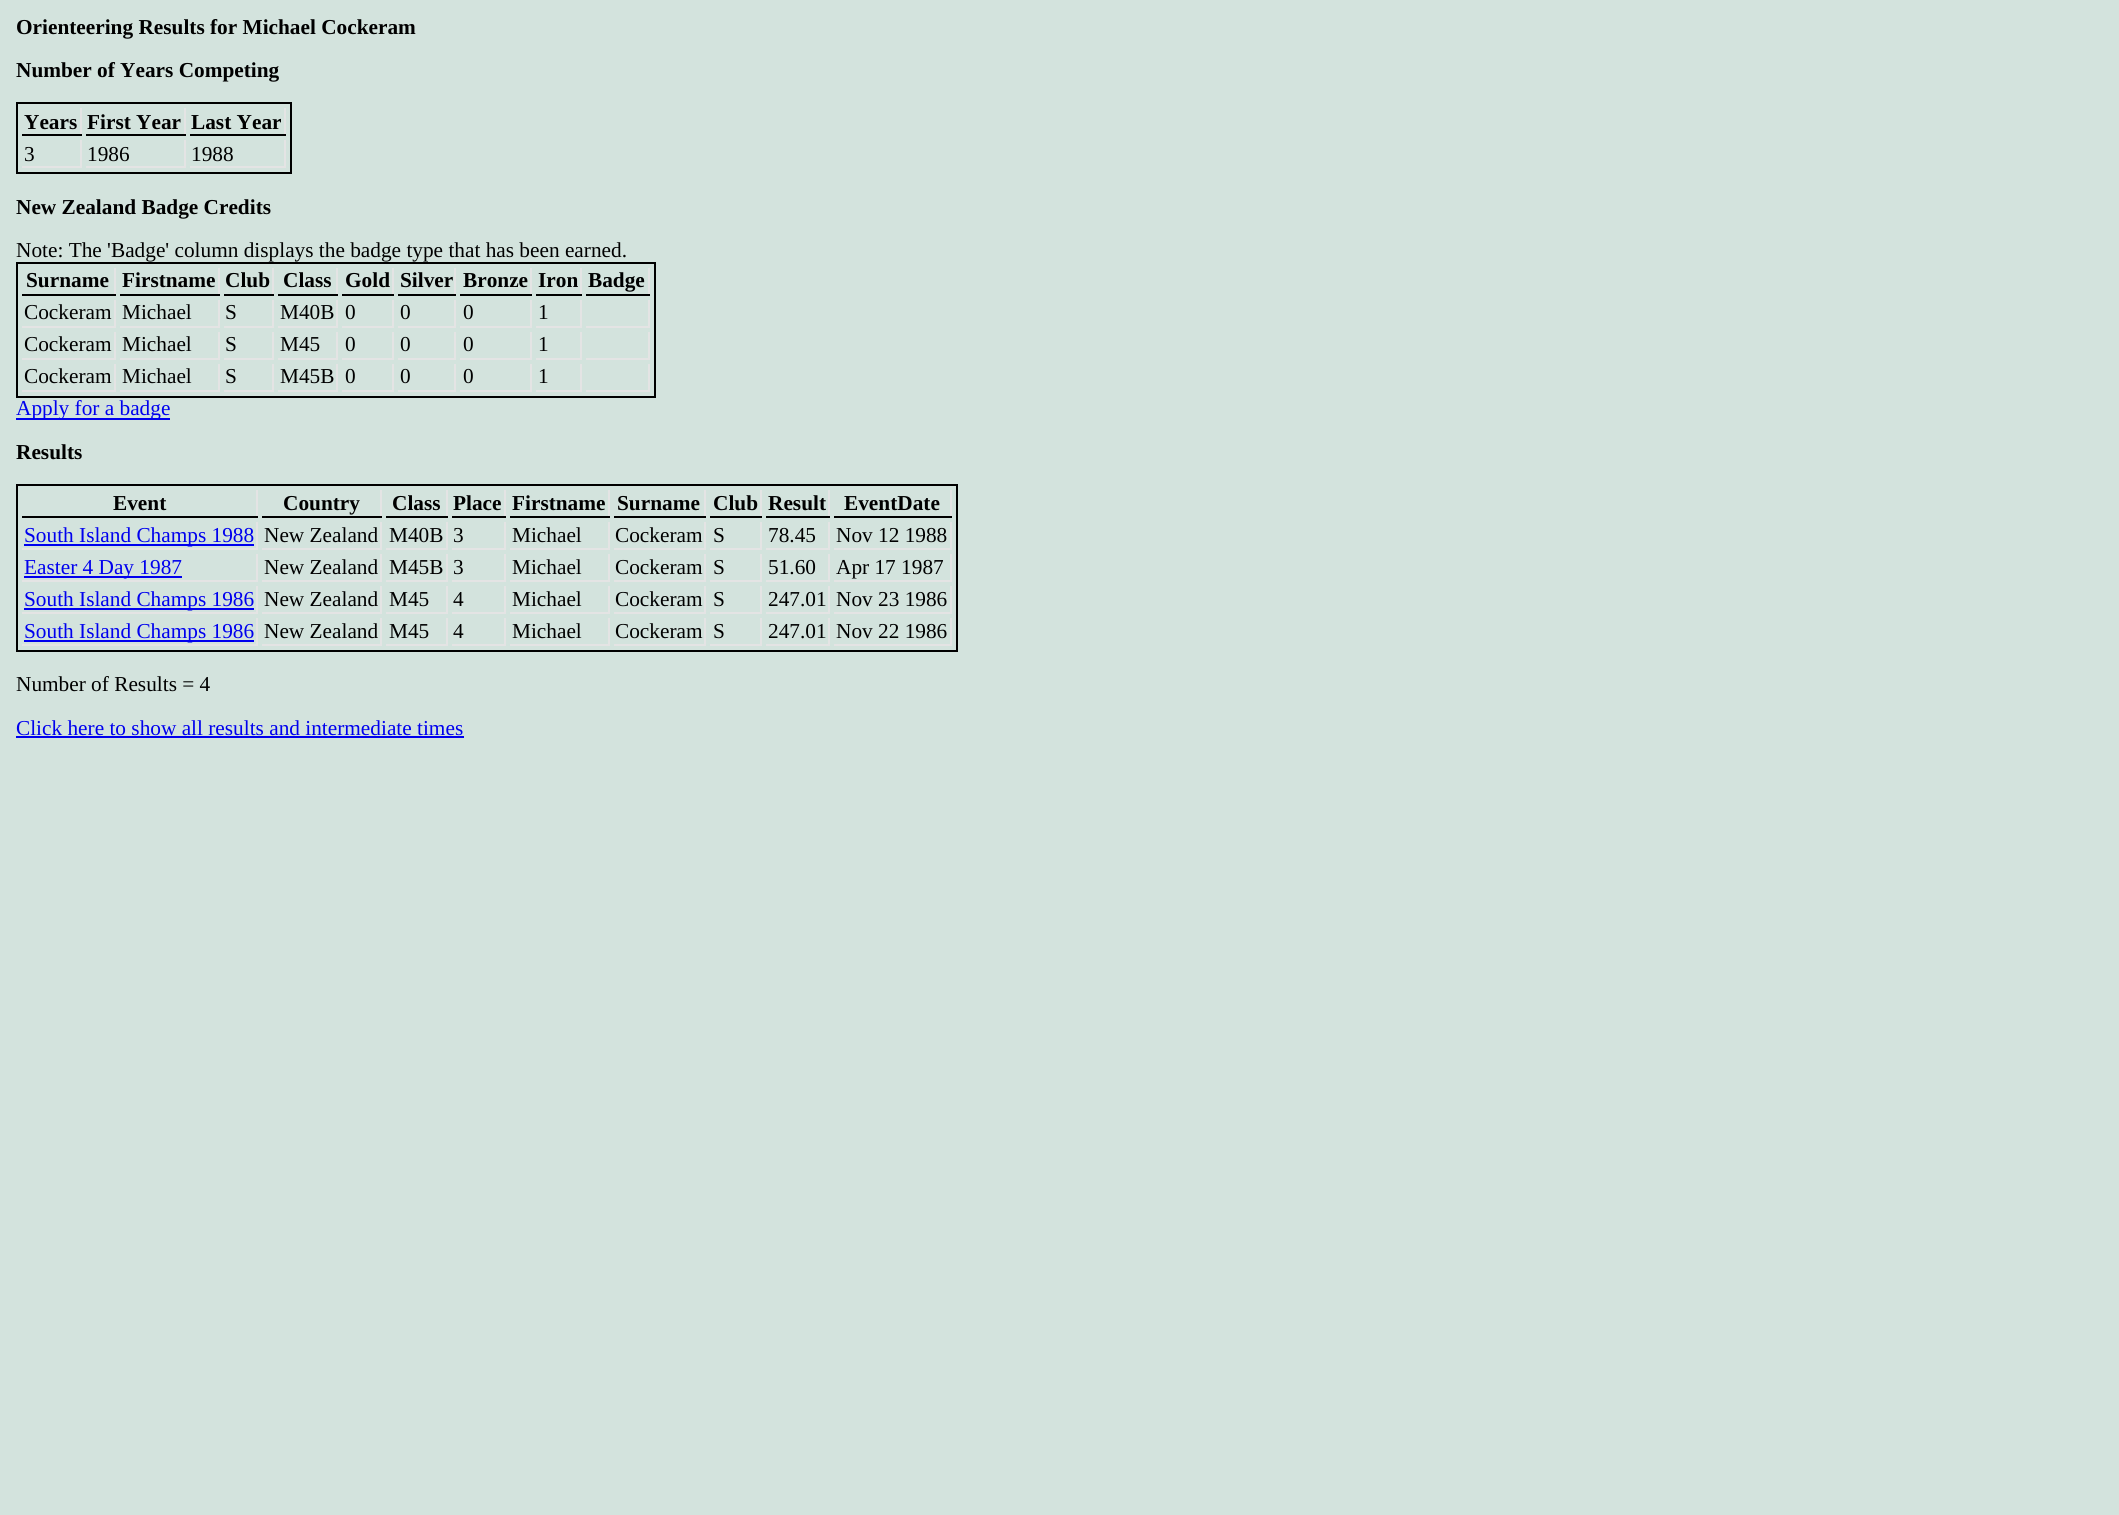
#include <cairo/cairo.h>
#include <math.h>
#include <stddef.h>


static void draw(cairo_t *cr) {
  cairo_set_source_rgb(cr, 211 / 255.0, 227 / 255.0, 221 / 255.0);
  cairo_paint(cr);
  cairo_rectangle(cr, 17, 103, 274, 70);
  cairo_set_source_rgb(cr, 0, 0, 0);
  cairo_stroke(cr);
  cairo_set_source_rgb(cr, 228 / 255.0, 228 / 255.0, 228 / 255.0);
  cairo_rectangle(cr, 80, 108, 2, 28);
  cairo_fill(cr);
  cairo_set_source_rgb(cr, 0, 0, 0);
  cairo_rectangle(cr, 22, 134, 60, 2);
  cairo_fill(cr);
  cairo_set_source_rgb(cr, 228 / 255.0, 228 / 255.0, 228 / 255.0);
  cairo_rectangle(cr, 184, 108, 2, 28);
  cairo_fill(cr);
  cairo_set_source_rgb(cr, 0, 0, 0);
  cairo_rectangle(cr, 86, 134, 100, 2);
  cairo_fill(cr);
  cairo_set_source_rgb(cr, 228 / 255.0, 228 / 255.0, 228 / 255.0);
  cairo_rectangle(cr, 284, 108, 2, 28);
  cairo_fill(cr);
  cairo_set_source_rgb(cr, 0, 0, 0);
  cairo_rectangle(cr, 190, 134, 96, 2);
  cairo_fill(cr);
  cairo_set_source_rgb(cr, 228 / 255.0, 228 / 255.0, 228 / 255.0);
  cairo_rectangle(cr, 80, 140, 2, 28);
  cairo_fill(cr);
  cairo_rectangle(cr, 22, 166, 60, 2);
  cairo_fill(cr);
  cairo_rectangle(cr, 184, 140, 2, 28);
  cairo_fill(cr);
  cairo_rectangle(cr, 86, 166, 100, 2);
  cairo_fill(cr);
  cairo_rectangle(cr, 284, 140, 2, 28);
  cairo_fill(cr);
  cairo_rectangle(cr, 190, 166, 96, 2);
  cairo_fill(cr);
  cairo_rectangle(cr, 17, 263, 638, 134);
  cairo_set_source_rgb(cr, 0, 0, 0);
  cairo_stroke(cr);
  cairo_set_source_rgb(cr, 228 / 255.0, 228 / 255.0, 228 / 255.0);
  cairo_rectangle(cr, 114, 268, 2, 28);
  cairo_fill(cr);
  cairo_set_source_rgb(cr, 0, 0, 0);
  cairo_rectangle(cr, 22, 294, 94, 2);
  cairo_fill(cr);
  cairo_set_source_rgb(cr, 228 / 255.0, 228 / 255.0, 228 / 255.0);
  cairo_rectangle(cr, 218, 268, 2, 28);
  cairo_fill(cr);
  cairo_set_source_rgb(cr, 0, 0, 0);
  cairo_rectangle(cr, 120, 294, 100, 2);
  cairo_fill(cr);
  cairo_set_source_rgb(cr, 228 / 255.0, 228 / 255.0, 228 / 255.0);
  cairo_rectangle(cr, 272, 268, 2, 28);
  cairo_fill(cr);
  cairo_set_source_rgb(cr, 0, 0, 0);
  cairo_rectangle(cr, 224, 294, 50, 2);
  cairo_fill(cr);
  cairo_set_source_rgb(cr, 228 / 255.0, 228 / 255.0, 228 / 255.0);
  cairo_rectangle(cr, 336, 268, 2, 28);
  cairo_fill(cr);
  cairo_set_source_rgb(cr, 0, 0, 0);
  cairo_rectangle(cr, 278, 294, 60, 2);
  cairo_fill(cr);
  cairo_set_source_rgb(cr, 228 / 255.0, 228 / 255.0, 228 / 255.0);
  cairo_rectangle(cr, 392, 268, 2, 28);
  cairo_fill(cr);
  cairo_set_source_rgb(cr, 0, 0, 0);
  cairo_rectangle(cr, 342, 294, 52, 2);
  cairo_fill(cr);
  cairo_set_source_rgb(cr, 228 / 255.0, 228 / 255.0, 228 / 255.0);
  cairo_rectangle(cr, 454, 268, 2, 28);
  cairo_fill(cr);
  cairo_set_source_rgb(cr, 0, 0, 0);
  cairo_rectangle(cr, 398, 294, 58, 2);
  cairo_fill(cr);
  cairo_set_source_rgb(cr, 228 / 255.0, 228 / 255.0, 228 / 255.0);
  cairo_rectangle(cr, 530, 268, 2, 28);
  cairo_fill(cr);
  cairo_set_source_rgb(cr, 0, 0, 0);
  cairo_rectangle(cr, 460, 294, 72, 2);
  cairo_fill(cr);
  cairo_set_source_rgb(cr, 228 / 255.0, 228 / 255.0, 228 / 255.0);
  cairo_rectangle(cr, 580, 268, 2, 28);
  cairo_fill(cr);
  cairo_set_source_rgb(cr, 0, 0, 0);
  cairo_rectangle(cr, 536, 294, 46, 2);
  cairo_fill(cr);
  cairo_set_source_rgb(cr, 228 / 255.0, 228 / 255.0, 228 / 255.0);
  cairo_rectangle(cr, 648, 268, 2, 28);
  cairo_fill(cr);
  cairo_set_source_rgb(cr, 0, 0, 0);
  cairo_rectangle(cr, 586, 294, 64, 2);
  cairo_fill(cr);
  cairo_set_source_rgb(cr, 228 / 255.0, 228 / 255.0, 228 / 255.0);
  cairo_rectangle(cr, 114, 300, 2, 28);
  cairo_fill(cr);
  cairo_rectangle(cr, 22, 326, 94, 2);
  cairo_fill(cr);
  cairo_rectangle(cr, 218, 300, 2, 28);
  cairo_fill(cr);
  cairo_rectangle(cr, 120, 326, 100, 2);
  cairo_fill(cr);
  cairo_rectangle(cr, 272, 300, 2, 28);
  cairo_fill(cr);
  cairo_rectangle(cr, 224, 326, 50, 2);
  cairo_fill(cr);
  cairo_rectangle(cr, 336, 300, 2, 28);
  cairo_fill(cr);
  cairo_rectangle(cr, 278, 326, 60, 2);
  cairo_fill(cr);
  cairo_rectangle(cr, 392, 300, 2, 28);
  cairo_fill(cr);
  cairo_rectangle(cr, 342, 326, 52, 2);
  cairo_fill(cr);
  cairo_rectangle(cr, 454, 300, 2, 28);
  cairo_fill(cr);
  cairo_rectangle(cr, 398, 326, 58, 2);
  cairo_fill(cr);
  cairo_rectangle(cr, 530, 300, 2, 28);
  cairo_fill(cr);
  cairo_rectangle(cr, 460, 326, 72, 2);
  cairo_fill(cr);
  cairo_rectangle(cr, 580, 300, 2, 28);
  cairo_fill(cr);
  cairo_rectangle(cr, 536, 326, 46, 2);
  cairo_fill(cr);
  cairo_rectangle(cr, 648, 300, 2, 28);
  cairo_fill(cr);
  cairo_rectangle(cr, 586, 326, 64, 2);
  cairo_fill(cr);
  cairo_rectangle(cr, 114, 332, 2, 28);
  cairo_fill(cr);
  cairo_rectangle(cr, 22, 358, 94, 2);
  cairo_fill(cr);
  cairo_rectangle(cr, 218, 332, 2, 28);
  cairo_fill(cr);
  cairo_rectangle(cr, 120, 358, 100, 2);
  cairo_fill(cr);
  cairo_rectangle(cr, 272, 332, 2, 28);
  cairo_fill(cr);
  cairo_rectangle(cr, 224, 358, 50, 2);
  cairo_fill(cr);
  cairo_rectangle(cr, 336, 332, 2, 28);
  cairo_fill(cr);
  cairo_rectangle(cr, 278, 358, 60, 2);
  cairo_fill(cr);
  cairo_rectangle(cr, 392, 332, 2, 28);
  cairo_fill(cr);
  cairo_rectangle(cr, 342, 358, 52, 2);
  cairo_fill(cr);
  cairo_rectangle(cr, 454, 332, 2, 28);
  cairo_fill(cr);
  cairo_rectangle(cr, 398, 358, 58, 2);
  cairo_fill(cr);
  cairo_rectangle(cr, 530, 332, 2, 28);
  cairo_fill(cr);
  cairo_rectangle(cr, 460, 358, 72, 2);
  cairo_fill(cr);
  cairo_rectangle(cr, 580, 332, 2, 28);
  cairo_fill(cr);
  cairo_rectangle(cr, 536, 358, 46, 2);
  cairo_fill(cr);
  cairo_rectangle(cr, 648, 332, 2, 28);
  cairo_fill(cr);
  cairo_rectangle(cr, 586, 358, 64, 2);
  cairo_fill(cr);
  cairo_rectangle(cr, 114, 364, 2, 28);
  cairo_fill(cr);
  cairo_rectangle(cr, 22, 390, 94, 2);
  cairo_fill(cr);
  cairo_rectangle(cr, 218, 364, 2, 28);
  cairo_fill(cr);
  cairo_rectangle(cr, 120, 390, 100, 2);
  cairo_fill(cr);
  cairo_rectangle(cr, 272, 364, 2, 28);
  cairo_fill(cr);
  cairo_rectangle(cr, 224, 390, 50, 2);
  cairo_fill(cr);
  cairo_rectangle(cr, 336, 364, 2, 28);
  cairo_fill(cr);
  cairo_rectangle(cr, 278, 390, 60, 2);
  cairo_fill(cr);
  cairo_rectangle(cr, 392, 364, 2, 28);
  cairo_fill(cr);
  cairo_rectangle(cr, 342, 390, 52, 2);
  cairo_fill(cr);
  cairo_rectangle(cr, 454, 364, 2, 28);
  cairo_fill(cr);
  cairo_rectangle(cr, 398, 390, 58, 2);
  cairo_fill(cr);
  cairo_rectangle(cr, 530, 364, 2, 28);
  cairo_fill(cr);
  cairo_rectangle(cr, 460, 390, 72, 2);
  cairo_fill(cr);
  cairo_rectangle(cr, 580, 364, 2, 28);
  cairo_fill(cr);
  cairo_rectangle(cr, 536, 390, 46, 2);
  cairo_fill(cr);
  cairo_rectangle(cr, 648, 364, 2, 28);
  cairo_fill(cr);
  cairo_rectangle(cr, 586, 390, 64, 2);
  cairo_fill(cr);
  cairo_set_source_rgb(cr, 0, 0, 238 / 255.0);
  cairo_rectangle(cr, 16, 418, 154, 2);
  cairo_fill(cr);
  cairo_rectangle(cr, 17, 485, 940, 166);
  cairo_set_source_rgb(cr, 0, 0, 0);
  cairo_stroke(cr);
  cairo_set_source_rgb(cr, 228 / 255.0, 228 / 255.0, 228 / 255.0);
  cairo_rectangle(cr, 256, 490, 2, 28);
  cairo_fill(cr);
  cairo_set_source_rgb(cr, 0, 0, 0);
  cairo_rectangle(cr, 22, 516, 236, 2);
  cairo_fill(cr);
  cairo_set_source_rgb(cr, 228 / 255.0, 228 / 255.0, 228 / 255.0);
  cairo_rectangle(cr, 380, 490, 2, 28);
  cairo_fill(cr);
  cairo_set_source_rgb(cr, 0, 0, 0);
  cairo_rectangle(cr, 262, 516, 120, 2);
  cairo_fill(cr);
  cairo_set_source_rgb(cr, 228 / 255.0, 228 / 255.0, 228 / 255.0);
  cairo_rectangle(cr, 446, 490, 2, 28);
  cairo_fill(cr);
  cairo_set_source_rgb(cr, 0, 0, 0);
  cairo_rectangle(cr, 386, 516, 62, 2);
  cairo_fill(cr);
  cairo_set_source_rgb(cr, 228 / 255.0, 228 / 255.0, 228 / 255.0);
  cairo_rectangle(cr, 504, 490, 2, 28);
  cairo_fill(cr);
  cairo_set_source_rgb(cr, 0, 0, 0);
  cairo_rectangle(cr, 452, 516, 54, 2);
  cairo_fill(cr);
  cairo_set_source_rgb(cr, 228 / 255.0, 228 / 255.0, 228 / 255.0);
  cairo_rectangle(cr, 608, 490, 2, 28);
  cairo_fill(cr);
  cairo_set_source_rgb(cr, 0, 0, 0);
  cairo_rectangle(cr, 510, 516, 100, 2);
  cairo_fill(cr);
  cairo_set_source_rgb(cr, 228 / 255.0, 228 / 255.0, 228 / 255.0);
  cairo_rectangle(cr, 704, 490, 2, 28);
  cairo_fill(cr);
  cairo_set_source_rgb(cr, 0, 0, 0);
  cairo_rectangle(cr, 614, 516, 92, 2);
  cairo_fill(cr);
  cairo_set_source_rgb(cr, 228 / 255.0, 228 / 255.0, 228 / 255.0);
  cairo_rectangle(cr, 760, 490, 2, 28);
  cairo_fill(cr);
  cairo_set_source_rgb(cr, 0, 0, 0);
  cairo_rectangle(cr, 710, 516, 52, 2);
  cairo_fill(cr);
  cairo_set_source_rgb(cr, 228 / 255.0, 228 / 255.0, 228 / 255.0);
  cairo_rectangle(cr, 828, 490, 2, 28);
  cairo_fill(cr);
  cairo_set_source_rgb(cr, 0, 0, 0);
  cairo_rectangle(cr, 766, 516, 64, 2);
  cairo_fill(cr);
  cairo_set_source_rgb(cr, 228 / 255.0, 228 / 255.0, 228 / 255.0);
  cairo_rectangle(cr, 950, 490, 2, 28);
  cairo_fill(cr);
  cairo_set_source_rgb(cr, 0, 0, 0);
  cairo_rectangle(cr, 834, 516, 118, 2);
  cairo_fill(cr);
  cairo_set_source_rgb(cr, 228 / 255.0, 228 / 255.0, 228 / 255.0);
  cairo_rectangle(cr, 256, 522, 2, 28);
  cairo_fill(cr);
  cairo_rectangle(cr, 22, 548, 236, 2);
  cairo_fill(cr);
  cairo_set_source_rgb(cr, 0, 0, 238 / 255.0);
  cairo_rectangle(cr, 24, 544, 230, 2);
  cairo_fill(cr);
  cairo_set_source_rgb(cr, 228 / 255.0, 228 / 255.0, 228 / 255.0);
  cairo_rectangle(cr, 380, 522, 2, 28);
  cairo_fill(cr);
  cairo_rectangle(cr, 262, 548, 120, 2);
  cairo_fill(cr);
  cairo_rectangle(cr, 446, 522, 2, 28);
  cairo_fill(cr);
  cairo_rectangle(cr, 386, 548, 62, 2);
  cairo_fill(cr);
  cairo_rectangle(cr, 504, 522, 2, 28);
  cairo_fill(cr);
  cairo_rectangle(cr, 452, 548, 54, 2);
  cairo_fill(cr);
  cairo_rectangle(cr, 608, 522, 2, 28);
  cairo_fill(cr);
  cairo_rectangle(cr, 510, 548, 100, 2);
  cairo_fill(cr);
  cairo_rectangle(cr, 704, 522, 2, 28);
  cairo_fill(cr);
  cairo_rectangle(cr, 614, 548, 92, 2);
  cairo_fill(cr);
  cairo_rectangle(cr, 760, 522, 2, 28);
  cairo_fill(cr);
  cairo_rectangle(cr, 710, 548, 52, 2);
  cairo_fill(cr);
  cairo_rectangle(cr, 828, 522, 2, 28);
  cairo_fill(cr);
  cairo_rectangle(cr, 766, 548, 64, 2);
  cairo_fill(cr);
  cairo_rectangle(cr, 950, 522, 2, 28);
  cairo_fill(cr);
  cairo_rectangle(cr, 834, 548, 118, 2);
  cairo_fill(cr);
  cairo_rectangle(cr, 256, 554, 2, 28);
  cairo_fill(cr);
  cairo_rectangle(cr, 22, 580, 236, 2);
  cairo_fill(cr);
  cairo_set_source_rgb(cr, 0, 0, 238 / 255.0);
  cairo_rectangle(cr, 24, 576, 158, 2);
  cairo_fill(cr);
  cairo_set_source_rgb(cr, 228 / 255.0, 228 / 255.0, 228 / 255.0);
  cairo_rectangle(cr, 380, 554, 2, 28);
  cairo_fill(cr);
  cairo_rectangle(cr, 262, 580, 120, 2);
  cairo_fill(cr);
  cairo_rectangle(cr, 446, 554, 2, 28);
  cairo_fill(cr);
  cairo_rectangle(cr, 386, 580, 62, 2);
  cairo_fill(cr);
  cairo_rectangle(cr, 504, 554, 2, 28);
  cairo_fill(cr);
  cairo_rectangle(cr, 452, 580, 54, 2);
  cairo_fill(cr);
  cairo_rectangle(cr, 608, 554, 2, 28);
  cairo_fill(cr);
  cairo_rectangle(cr, 510, 580, 100, 2);
  cairo_fill(cr);
  cairo_rectangle(cr, 704, 554, 2, 28);
  cairo_fill(cr);
  cairo_rectangle(cr, 614, 580, 92, 2);
  cairo_fill(cr);
  cairo_rectangle(cr, 760, 554, 2, 28);
  cairo_fill(cr);
  cairo_rectangle(cr, 710, 580, 52, 2);
  cairo_fill(cr);
  cairo_rectangle(cr, 828, 554, 2, 28);
  cairo_fill(cr);
  cairo_rectangle(cr, 766, 580, 64, 2);
  cairo_fill(cr);
  cairo_rectangle(cr, 950, 554, 2, 28);
  cairo_fill(cr);
  cairo_rectangle(cr, 834, 580, 118, 2);
  cairo_fill(cr);
  cairo_rectangle(cr, 256, 586, 2, 28);
  cairo_fill(cr);
  cairo_rectangle(cr, 22, 612, 236, 2);
  cairo_fill(cr);
  cairo_set_source_rgb(cr, 0, 0, 238 / 255.0);
  cairo_rectangle(cr, 24, 608, 230, 2);
  cairo_fill(cr);
  cairo_set_source_rgb(cr, 228 / 255.0, 228 / 255.0, 228 / 255.0);
  cairo_rectangle(cr, 380, 586, 2, 28);
  cairo_fill(cr);
  cairo_rectangle(cr, 262, 612, 120, 2);
  cairo_fill(cr);
  cairo_rectangle(cr, 446, 586, 2, 28);
  cairo_fill(cr);
  cairo_rectangle(cr, 386, 612, 62, 2);
  cairo_fill(cr);
  cairo_rectangle(cr, 504, 586, 2, 28);
  cairo_fill(cr);
  cairo_rectangle(cr, 452, 612, 54, 2);
  cairo_fill(cr);
  cairo_rectangle(cr, 608, 586, 2, 28);
  cairo_fill(cr);
  cairo_rectangle(cr, 510, 612, 100, 2);
  cairo_fill(cr);
  cairo_rectangle(cr, 704, 586, 2, 28);
  cairo_fill(cr);
  cairo_rectangle(cr, 614, 612, 92, 2);
  cairo_fill(cr);
  cairo_rectangle(cr, 760, 586, 2, 28);
  cairo_fill(cr);
  cairo_rectangle(cr, 710, 612, 52, 2);
  cairo_fill(cr);
  cairo_rectangle(cr, 828, 586, 2, 28);
  cairo_fill(cr);
  cairo_rectangle(cr, 766, 612, 64, 2);
  cairo_fill(cr);
  cairo_rectangle(cr, 950, 586, 2, 28);
  cairo_fill(cr);
  cairo_rectangle(cr, 834, 612, 118, 2);
  cairo_fill(cr);
  cairo_rectangle(cr, 256, 618, 2, 28);
  cairo_fill(cr);
  cairo_rectangle(cr, 22, 644, 236, 2);
  cairo_fill(cr);
  cairo_set_source_rgb(cr, 0, 0, 238 / 255.0);
  cairo_rectangle(cr, 24, 640, 230, 2);
  cairo_fill(cr);
  cairo_set_source_rgb(cr, 228 / 255.0, 228 / 255.0, 228 / 255.0);
  cairo_rectangle(cr, 380, 618, 2, 28);
  cairo_fill(cr);
  cairo_rectangle(cr, 262, 644, 120, 2);
  cairo_fill(cr);
  cairo_rectangle(cr, 446, 618, 2, 28);
  cairo_fill(cr);
  cairo_rectangle(cr, 386, 644, 62, 2);
  cairo_fill(cr);
  cairo_rectangle(cr, 504, 618, 2, 28);
  cairo_fill(cr);
  cairo_rectangle(cr, 452, 644, 54, 2);
  cairo_fill(cr);
  cairo_rectangle(cr, 608, 618, 2, 28);
  cairo_fill(cr);
  cairo_rectangle(cr, 510, 644, 100, 2);
  cairo_fill(cr);
  cairo_rectangle(cr, 704, 618, 2, 28);
  cairo_fill(cr);
  cairo_rectangle(cr, 614, 644, 92, 2);
  cairo_fill(cr);
  cairo_rectangle(cr, 760, 618, 2, 28);
  cairo_fill(cr);
  cairo_rectangle(cr, 710, 644, 52, 2);
  cairo_fill(cr);
  cairo_rectangle(cr, 828, 618, 2, 28);
  cairo_fill(cr);
  cairo_rectangle(cr, 766, 644, 64, 2);
  cairo_fill(cr);
  cairo_rectangle(cr, 950, 618, 2, 28);
  cairo_fill(cr);
  cairo_rectangle(cr, 834, 644, 118, 2);
  cairo_fill(cr);
  cairo_set_source_rgb(cr, 0, 0, 238 / 255.0);
  cairo_rectangle(cr, 16, 736, 448, 2);
  cairo_fill(cr);
  cairo_select_font_face(cr, "Liberation Serif", CAIRO_FONT_SLANT_NORMAL, CAIRO_FONT_WEIGHT_BOLD);
  cairo_set_font_size(cr, 21.3);
  cairo_set_source_rgb(cr, 0, 0, 0);
  cairo_move_to(cr, 16, 34);
  cairo_show_text(cr, "Orienteering Results for Michael Cockeram");
  cairo_move_to(cr, 16, 77);
  cairo_show_text(cr, "Number of Years Competing");
  cairo_move_to(cr, 24, 129);
  cairo_show_text(cr, "Years");
  cairo_move_to(cr, 87, 129);
  cairo_show_text(cr, "First Year");
  cairo_move_to(cr, 191, 129);
  cairo_show_text(cr, "Last Year");
  cairo_select_font_face(cr, "Liberation Serif", CAIRO_FONT_SLANT_NORMAL, CAIRO_FONT_WEIGHT_NORMAL);
  cairo_move_to(cr, 24, 161);
  cairo_show_text(cr, "3");
  cairo_move_to(cr, 87, 161);
  cairo_show_text(cr, "1986");
  cairo_move_to(cr, 191, 161);
  cairo_show_text(cr, "1988");
  cairo_select_font_face(cr, "Liberation Serif", CAIRO_FONT_SLANT_NORMAL, CAIRO_FONT_WEIGHT_BOLD);
  cairo_move_to(cr, 16, 214);
  cairo_show_text(cr, "New Zealand Badge Credits");
  cairo_select_font_face(cr, "Liberation Serif", CAIRO_FONT_SLANT_NORMAL, CAIRO_FONT_WEIGHT_NORMAL);
  cairo_move_to(cr, 16, 257);
  cairo_show_text(cr, "Note: The 'Badge' column displays the badge type that has been earned.");
  cairo_select_font_face(cr, "Liberation Serif", CAIRO_FONT_SLANT_NORMAL, CAIRO_FONT_WEIGHT_BOLD);
  cairo_move_to(cr, 26, 287);
  cairo_show_text(cr, "Surname");
  cairo_move_to(cr, 122, 287);
  cairo_show_text(cr, "Firstname");
  cairo_move_to(cr, 225, 287);
  cairo_show_text(cr, "Club");
  cairo_move_to(cr, 283, 287);
  cairo_show_text(cr, "Class");
  cairo_move_to(cr, 345, 287);
  cairo_show_text(cr, "Gold");
  cairo_move_to(cr, 400, 287);
  cairo_show_text(cr, "Silver");
  cairo_move_to(cr, 463, 287);
  cairo_show_text(cr, "Bronze");
  cairo_move_to(cr, 538, 287);
  cairo_show_text(cr, "Iron");
  cairo_move_to(cr, 588, 287);
  cairo_show_text(cr, "Badge");
  cairo_select_font_face(cr, "Liberation Serif", CAIRO_FONT_SLANT_NORMAL, CAIRO_FONT_WEIGHT_NORMAL);
  cairo_move_to(cr, 24, 319);
  cairo_show_text(cr, "Cockeram");
  cairo_move_to(cr, 122, 319);
  cairo_show_text(cr, "Michael");
  cairo_move_to(cr, 225, 319);
  cairo_show_text(cr, "S");
  cairo_move_to(cr, 280, 319);
  cairo_show_text(cr, "M40B");
  cairo_move_to(cr, 345, 319);
  cairo_show_text(cr, "0");
  cairo_move_to(cr, 400, 319);
  cairo_show_text(cr, "0");
  cairo_move_to(cr, 463, 319);
  cairo_show_text(cr, "0");
  cairo_move_to(cr, 538, 319);
  cairo_show_text(cr, "1");
  cairo_move_to(cr, 24, 351);
  cairo_show_text(cr, "Cockeram");
  cairo_move_to(cr, 122, 351);
  cairo_show_text(cr, "Michael");
  cairo_move_to(cr, 225, 351);
  cairo_show_text(cr, "S");
  cairo_move_to(cr, 280, 351);
  cairo_show_text(cr, "M45");
  cairo_move_to(cr, 345, 351);
  cairo_show_text(cr, "0");
  cairo_move_to(cr, 400, 351);
  cairo_show_text(cr, "0");
  cairo_move_to(cr, 463, 351);
  cairo_show_text(cr, "0");
  cairo_move_to(cr, 538, 351);
  cairo_show_text(cr, "1");
  cairo_move_to(cr, 24, 383);
  cairo_show_text(cr, "Cockeram");
  cairo_move_to(cr, 122, 383);
  cairo_show_text(cr, "Michael");
  cairo_move_to(cr, 225, 383);
  cairo_show_text(cr, "S");
  cairo_move_to(cr, 280, 383);
  cairo_show_text(cr, "M45B");
  cairo_move_to(cr, 345, 383);
  cairo_show_text(cr, "0");
  cairo_move_to(cr, 400, 383);
  cairo_show_text(cr, "0");
  cairo_move_to(cr, 463, 383);
  cairo_show_text(cr, "0");
  cairo_move_to(cr, 538, 383);
  cairo_show_text(cr, "1");
  cairo_set_source_rgb(cr, 0, 0, 238 / 255.0);
  cairo_move_to(cr, 16, 415);
  cairo_show_text(cr, "Apply for a badge");
  cairo_select_font_face(cr, "Liberation Serif", CAIRO_FONT_SLANT_NORMAL, CAIRO_FONT_WEIGHT_BOLD);
  cairo_set_source_rgb(cr, 0, 0, 0);
  cairo_move_to(cr, 16, 459);
  cairo_show_text(cr, "Results");
  cairo_move_to(cr, 113, 510);
  cairo_show_text(cr, "Event");
  cairo_move_to(cr, 283, 510);
  cairo_show_text(cr, "Country");
  cairo_move_to(cr, 392, 510);
  cairo_show_text(cr, "Class");
  cairo_move_to(cr, 453, 510);
  cairo_show_text(cr, "Place");
  cairo_move_to(cr, 512, 510);
  cairo_show_text(cr, "Firstname");
  cairo_move_to(cr, 617, 510);
  cairo_show_text(cr, "Surname");
  cairo_move_to(cr, 713, 510);
  cairo_show_text(cr, "Club");
  cairo_move_to(cr, 768, 510);
  cairo_show_text(cr, "Result");
  cairo_move_to(cr, 844, 510);
  cairo_show_text(cr, "EventDate");
  cairo_select_font_face(cr, "Liberation Serif", CAIRO_FONT_SLANT_NORMAL, CAIRO_FONT_WEIGHT_NORMAL);
  cairo_set_source_rgb(cr, 0, 0, 238 / 255.0);
  cairo_move_to(cr, 24, 542);
  cairo_show_text(cr, "South Island Champs 1988");
  cairo_set_source_rgb(cr, 0, 0, 0);
  cairo_move_to(cr, 264, 542);
  cairo_show_text(cr, "New Zealand");
  cairo_move_to(cr, 389, 542);
  cairo_show_text(cr, "M40B");
  cairo_move_to(cr, 453, 542);
  cairo_show_text(cr, "3");
  cairo_move_to(cr, 512, 542);
  cairo_show_text(cr, "Michael");
  cairo_move_to(cr, 615, 542);
  cairo_show_text(cr, "Cockeram");
  cairo_move_to(cr, 713, 542);
  cairo_show_text(cr, "S");
  cairo_move_to(cr, 768, 542);
  cairo_show_text(cr, "78.45");
  cairo_move_to(cr, 836, 542);
  cairo_show_text(cr, "Nov 12 1988");
  cairo_set_source_rgb(cr, 0, 0, 238 / 255.0);
  cairo_move_to(cr, 24, 574);
  cairo_show_text(cr, "Easter 4 Day 1987");
  cairo_set_source_rgb(cr, 0, 0, 0);
  cairo_move_to(cr, 264, 574);
  cairo_show_text(cr, "New Zealand");
  cairo_move_to(cr, 389, 574);
  cairo_show_text(cr, "M45B");
  cairo_move_to(cr, 453, 574);
  cairo_show_text(cr, "3");
  cairo_move_to(cr, 512, 574);
  cairo_show_text(cr, "Michael");
  cairo_move_to(cr, 615, 574);
  cairo_show_text(cr, "Cockeram");
  cairo_move_to(cr, 713, 574);
  cairo_show_text(cr, "S");
  cairo_move_to(cr, 768, 574);
  cairo_show_text(cr, "51.60");
  cairo_move_to(cr, 836, 574);
  cairo_show_text(cr, "Apr 17 1987");
  cairo_set_source_rgb(cr, 0, 0, 238 / 255.0);
  cairo_move_to(cr, 24, 606);
  cairo_show_text(cr, "South Island Champs 1986");
  cairo_set_source_rgb(cr, 0, 0, 0);
  cairo_move_to(cr, 264, 606);
  cairo_show_text(cr, "New Zealand");
  cairo_move_to(cr, 389, 606);
  cairo_show_text(cr, "M45");
  cairo_move_to(cr, 453, 606);
  cairo_show_text(cr, "4");
  cairo_move_to(cr, 512, 606);
  cairo_show_text(cr, "Michael");
  cairo_move_to(cr, 615, 606);
  cairo_show_text(cr, "Cockeram");
  cairo_move_to(cr, 713, 606);
  cairo_show_text(cr, "S");
  cairo_move_to(cr, 768, 606);
  cairo_show_text(cr, "247.01");
  cairo_move_to(cr, 836, 606);
  cairo_show_text(cr, "Nov 23 1986");
  cairo_set_source_rgb(cr, 0, 0, 238 / 255.0);
  cairo_move_to(cr, 24, 638);
  cairo_show_text(cr, "South Island Champs 1986");
  cairo_set_source_rgb(cr, 0, 0, 0);
  cairo_move_to(cr, 264, 638);
  cairo_show_text(cr, "New Zealand");
  cairo_move_to(cr, 389, 638);
  cairo_show_text(cr, "M45");
  cairo_move_to(cr, 453, 638);
  cairo_show_text(cr, "4");
  cairo_move_to(cr, 512, 638);
  cairo_show_text(cr, "Michael");
  cairo_move_to(cr, 615, 638);
  cairo_show_text(cr, "Cockeram");
  cairo_move_to(cr, 713, 638);
  cairo_show_text(cr, "S");
  cairo_move_to(cr, 768, 638);
  cairo_show_text(cr, "247.01");
  cairo_move_to(cr, 836, 638);
  cairo_show_text(cr, "Nov 22 1986");
  cairo_move_to(cr, 16, 691);
  cairo_show_text(cr, "Number of Results = 4");
  cairo_set_source_rgb(cr, 0, 0, 238 / 255.0);
  cairo_move_to(cr, 16, 735);
  cairo_show_text(cr, "Click here to show all results and intermediate times");
}

int main(void) {
  cairo_surface_t *surface = cairo_image_surface_create(CAIRO_FORMAT_RGB24, 2119, 1515);
  cairo_t *cr = cairo_create(surface);
  cairo_font_options_t *options = cairo_font_options_create();
  cairo_font_options_set_hint_metrics(options, CAIRO_HINT_METRICS_OFF);
  cairo_font_options_set_hint_style(options, CAIRO_HINT_STYLE_NONE);
  cairo_set_font_options(cr, options);
  cairo_set_miter_limit(cr, 4);
  draw(cr);
  cairo_surface_write_to_png(surface, "out.png");
  cairo_font_options_destroy(options);
  cairo_destroy(cr);
  cairo_surface_destroy(surface);
  return 0;
}
